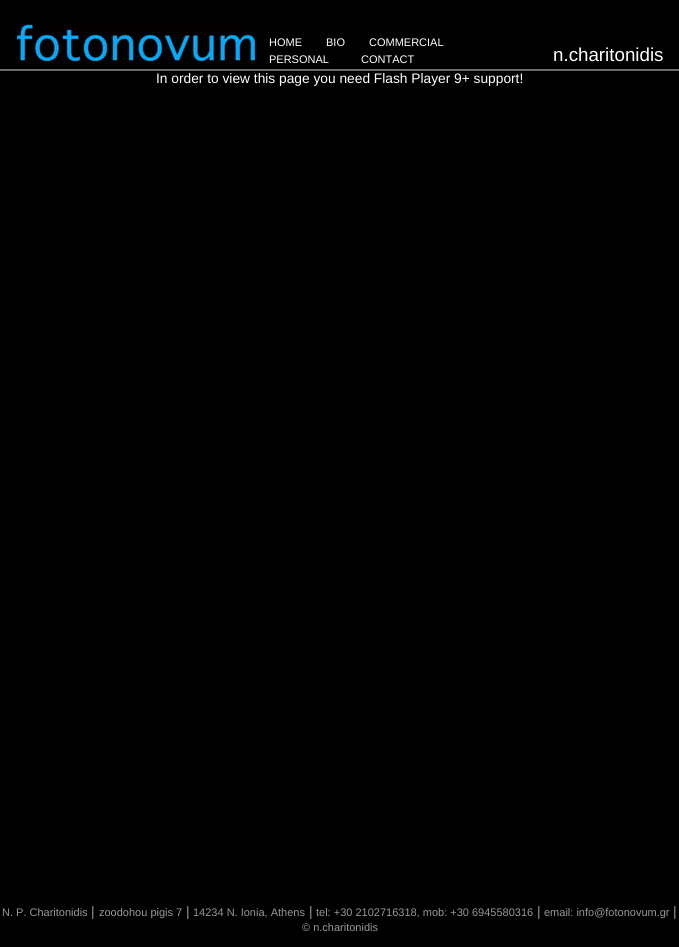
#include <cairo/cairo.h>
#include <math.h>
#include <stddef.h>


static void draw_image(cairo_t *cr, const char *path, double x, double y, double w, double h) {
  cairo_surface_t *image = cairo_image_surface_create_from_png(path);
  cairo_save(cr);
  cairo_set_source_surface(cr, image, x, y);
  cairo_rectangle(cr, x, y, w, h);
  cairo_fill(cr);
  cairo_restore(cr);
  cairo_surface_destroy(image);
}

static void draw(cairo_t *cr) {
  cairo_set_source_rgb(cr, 0, 0, 0);
  cairo_paint(cr);
  draw_image(cr, "images/1.png", 17, 24, 238, 38);
  cairo_set_source_rgb(cr, 107 / 255.0, 107 / 255.0, 107 / 255.0);
  cairo_rectangle(cr, 0, 69, 679, 2);
  cairo_fill(cr);
  cairo_select_font_face(cr, "Liberation Sans", CAIRO_FONT_SLANT_NORMAL, CAIRO_FONT_WEIGHT_NORMAL);
  cairo_set_font_size(cr, 11);
  cairo_set_source_rgb(cr, 1, 1, 1);
  cairo_move_to(cr, 269, 46);
  cairo_show_text(cr, "HOME");
  cairo_move_to(cr, 326, 46);
  cairo_show_text(cr, "BIO");
  cairo_move_to(cr, 369, 46);
  cairo_show_text(cr, "COMMERCIAL");
  cairo_move_to(cr, 269, 63);
  cairo_show_text(cr, "PERSONAL");
  cairo_move_to(cr, 361, 63);
  cairo_show_text(cr, "CONTACT");
  cairo_set_font_size(cr, 18.75);
  cairo_move_to(cr, 553, 61);
  cairo_show_text(cr, "n.charitonidis");
  cairo_set_font_size(cr, 13.75);
  cairo_move_to(cr, 156, 83);
  cairo_show_text(cr, "In order to view this page you need Flash Player 9+ support!");
  cairo_set_font_size(cr, 11);
  cairo_set_source_rgb(cr, 153 / 255.0, 153 / 255.0, 153 / 255.0);
  cairo_move_to(cr, 2, 916);
  cairo_show_text(cr, "N. P. Charitonidis");
  cairo_set_font_size(cr, 13.75);
  cairo_move_to(cr, 91, 916);
  cairo_show_text(cr, "|");
  cairo_set_font_size(cr, 11);
  cairo_move_to(cr, 99, 916);
  cairo_show_text(cr, "zoodohou pigis 7");
  cairo_set_font_size(cr, 13.75);
  cairo_move_to(cr, 186, 916);
  cairo_show_text(cr, "|");
  cairo_set_font_size(cr, 11);
  cairo_move_to(cr, 193, 916);
  cairo_show_text(cr, "14234 N. Ionia, Athens");
  cairo_set_font_size(cr, 13.75);
  cairo_move_to(cr, 309, 916);
  cairo_show_text(cr, "|");
  cairo_set_font_size(cr, 11);
  cairo_move_to(cr, 316, 916);
  cairo_show_text(cr, "tel: +30 2102716318, mob: +30 6945580316");
  cairo_set_font_size(cr, 13.75);
  cairo_move_to(cr, 537, 916);
  cairo_show_text(cr, "|");
  cairo_set_font_size(cr, 11);
  cairo_move_to(cr, 544, 916);
  cairo_show_text(cr, "email: info@fotonovum.gr");
  cairo_set_font_size(cr, 13.75);
  cairo_move_to(cr, 673, 916);
  cairo_show_text(cr, "|");
  cairo_set_font_size(cr, 11);
  cairo_move_to(cr, 302, 931);
  cairo_show_text(cr, "© n.charitonidis");
}

int main(void) {
  cairo_surface_t *surface = cairo_image_surface_create(CAIRO_FORMAT_RGB24, 679, 947);
  cairo_t *cr = cairo_create(surface);
  cairo_font_options_t *options = cairo_font_options_create();
  cairo_font_options_set_hint_metrics(options, CAIRO_HINT_METRICS_OFF);
  cairo_font_options_set_hint_style(options, CAIRO_HINT_STYLE_NONE);
  cairo_set_font_options(cr, options);
  cairo_set_miter_limit(cr, 4);
  draw(cr);
  cairo_surface_write_to_png(surface, "out.png");
  cairo_font_options_destroy(options);
  cairo_destroy(cr);
  cairo_surface_destroy(surface);
  return 0;
}
